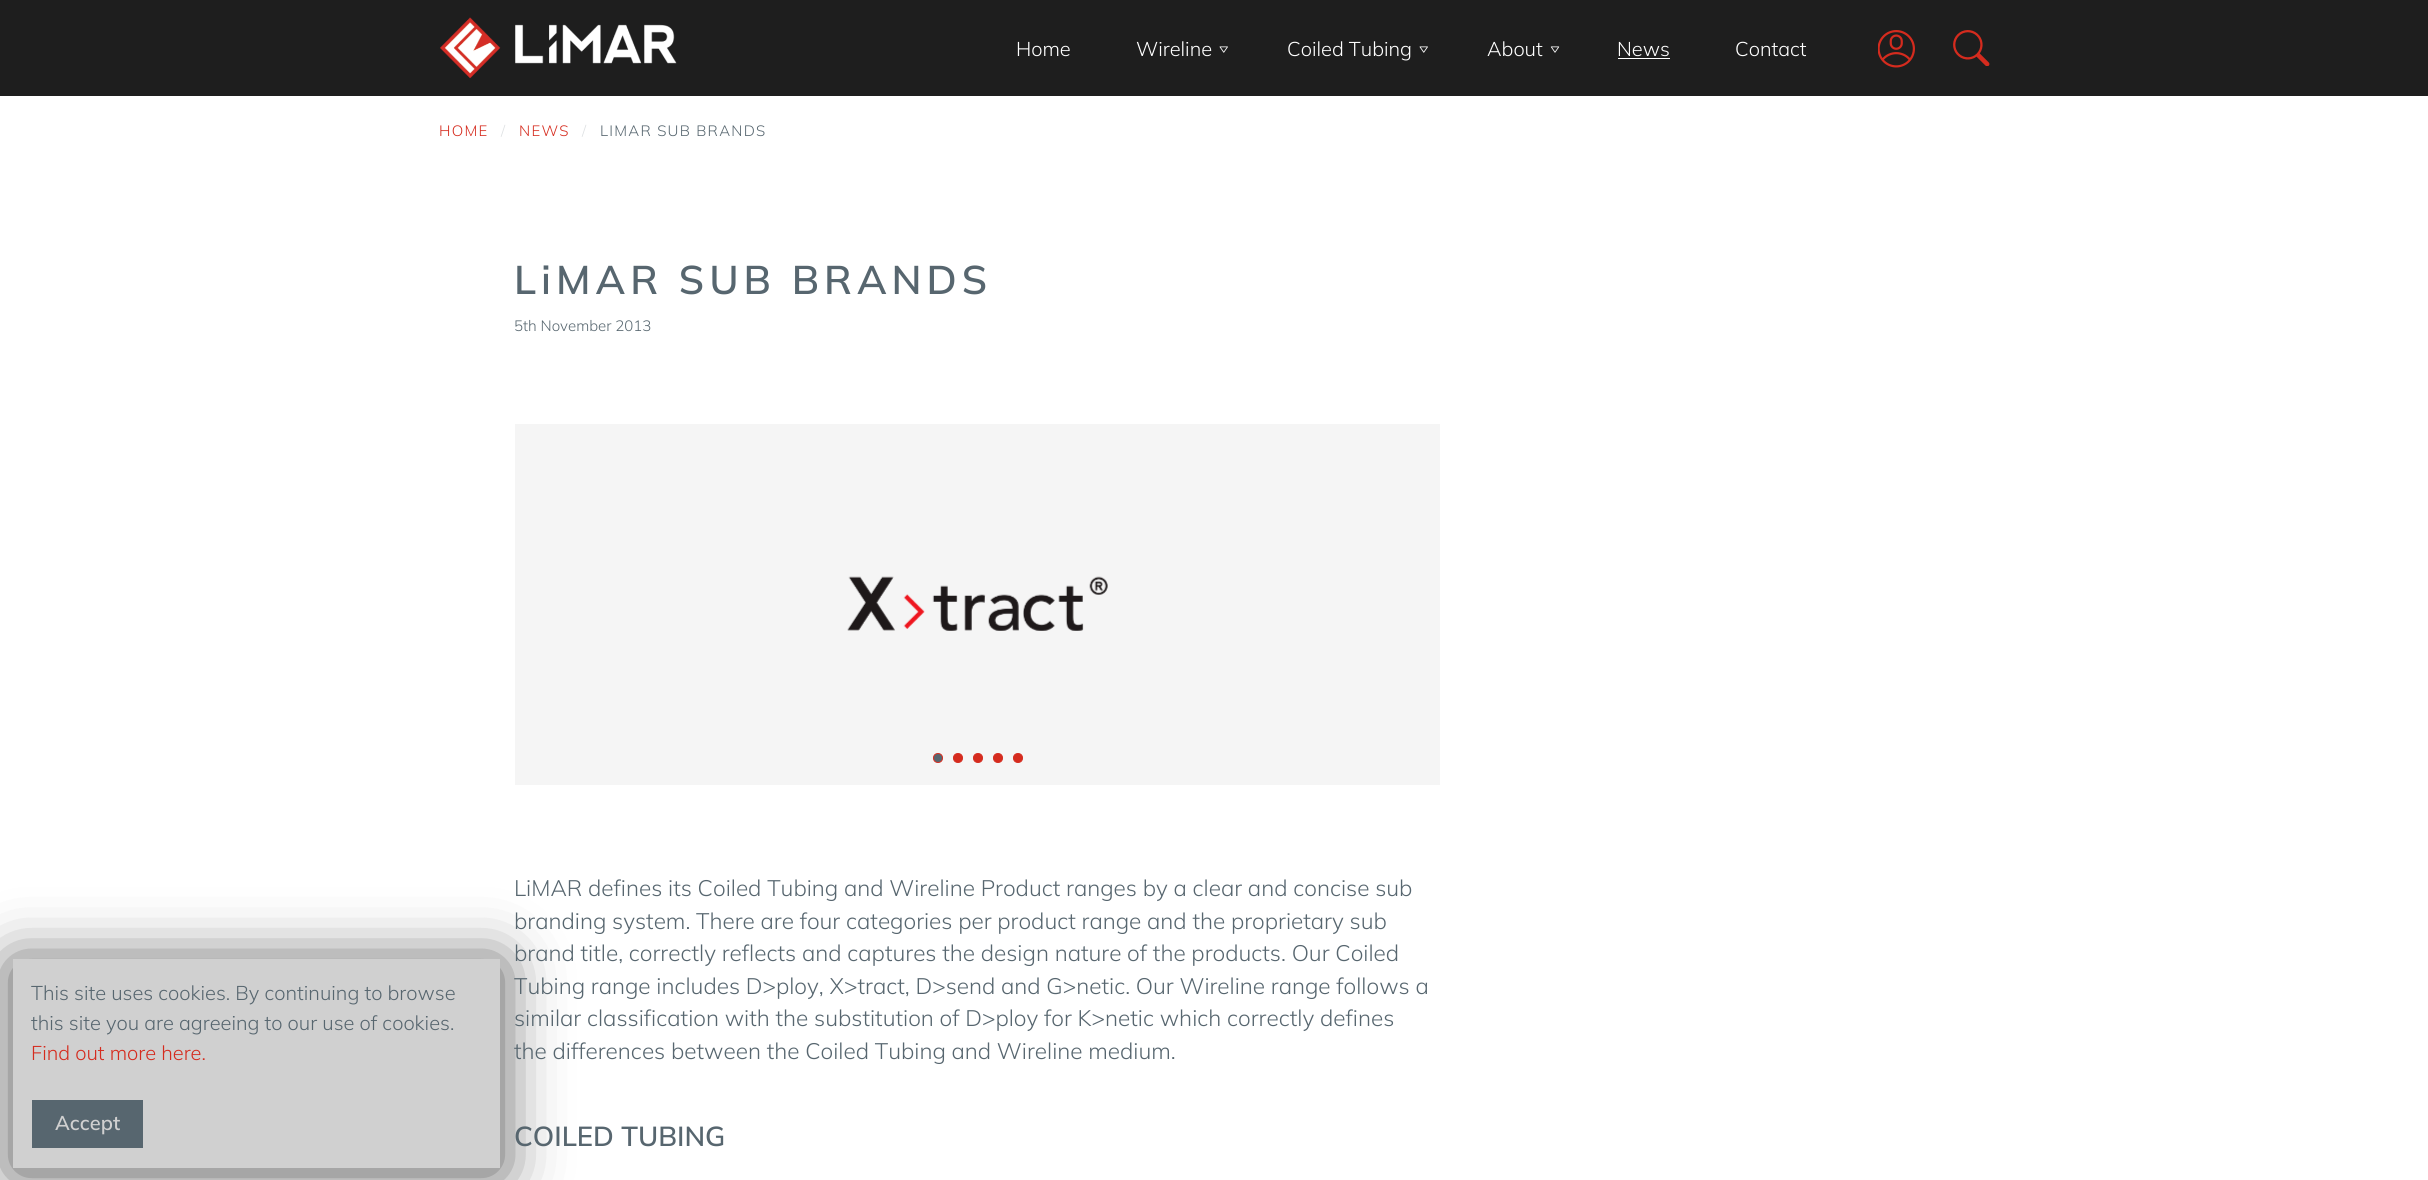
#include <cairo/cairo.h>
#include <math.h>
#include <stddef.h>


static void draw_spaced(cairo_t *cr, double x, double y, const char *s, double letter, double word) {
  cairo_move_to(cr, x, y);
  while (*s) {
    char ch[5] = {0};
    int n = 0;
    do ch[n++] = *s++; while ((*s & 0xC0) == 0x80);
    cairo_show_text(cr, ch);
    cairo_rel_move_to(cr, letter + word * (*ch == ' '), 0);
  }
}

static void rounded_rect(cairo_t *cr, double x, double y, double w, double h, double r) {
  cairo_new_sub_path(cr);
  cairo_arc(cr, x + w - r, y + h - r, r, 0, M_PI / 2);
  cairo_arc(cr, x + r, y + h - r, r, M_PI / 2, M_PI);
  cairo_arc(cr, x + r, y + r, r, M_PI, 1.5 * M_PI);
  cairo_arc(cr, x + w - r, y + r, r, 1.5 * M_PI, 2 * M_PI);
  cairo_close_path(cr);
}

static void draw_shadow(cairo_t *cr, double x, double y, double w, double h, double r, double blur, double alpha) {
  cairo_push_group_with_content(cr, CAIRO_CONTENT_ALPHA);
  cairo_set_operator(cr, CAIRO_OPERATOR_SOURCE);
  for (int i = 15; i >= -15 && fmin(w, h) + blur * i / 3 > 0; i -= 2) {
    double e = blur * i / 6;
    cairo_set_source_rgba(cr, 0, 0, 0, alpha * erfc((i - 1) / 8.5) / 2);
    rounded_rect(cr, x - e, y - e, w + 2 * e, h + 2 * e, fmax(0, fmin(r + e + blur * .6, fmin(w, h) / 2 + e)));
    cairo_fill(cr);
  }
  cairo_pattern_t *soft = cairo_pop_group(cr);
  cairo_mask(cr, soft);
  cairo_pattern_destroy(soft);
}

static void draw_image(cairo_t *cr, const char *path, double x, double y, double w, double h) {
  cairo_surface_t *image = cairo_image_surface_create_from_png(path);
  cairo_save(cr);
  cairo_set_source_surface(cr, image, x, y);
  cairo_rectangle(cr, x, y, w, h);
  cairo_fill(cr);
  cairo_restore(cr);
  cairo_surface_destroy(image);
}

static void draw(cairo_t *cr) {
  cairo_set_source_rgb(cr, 1, 1, 1);
  cairo_paint(cr);
  cairo_set_source_rgb(cr, 0, 0, 0);
  draw_shadow(cr, 13, 964, 487, 209, 0, 31, 0.7);
  cairo_set_source_rgb(cr, 208 / 255.0, 208 / 255.0, 208 / 255.0);
  cairo_rectangle(cr, 13, 959, 487, 209);
  cairo_fill(cr);
  cairo_set_source_rgb(cr, 87 / 255.0, 102 / 255.0, 111 / 255.0);
  cairo_rectangle(cr, 32, 1100, 111, 48);
  cairo_fill(cr);
  cairo_set_source_rgb(cr, 30 / 255.0, 30 / 255.0, 30 / 255.0);
  cairo_rectangle(cr, 0, 0, 2428, 96);
  cairo_fill(cr);
  draw_image(cr, "images/1.png", 440, 17, 237, 62);
  draw_image(cr, "images/2.png", 1219, 46, 9, 7);
  draw_image(cr, "images/2.png", 1419, 46, 9, 7);
  draw_image(cr, "images/3.png", 1550, 46, 10, 7);
  cairo_set_source_rgb(cr, 1, 1, 1);
  cairo_rectangle(cr, 1618, 58, 52, 1);
  cairo_fill(cr);
  draw_image(cr, "images/4.png", 1878, 30, 37, 38);
  draw_image(cr, "images/5.png", 1953, 30, 37, 36);
  cairo_set_source_rgb(cr, 245 / 255.0, 245 / 255.0, 245 / 255.0);
  cairo_rectangle(cr, 515, 424, 925, 361);
  cairo_fill(cr);
  draw_image(cr, "images/6.png", 847, 576, 261, 55);
  cairo_set_source_rgb(cr, 87 / 255.0, 102 / 255.0, 111 / 255.0);
  cairo_arc(cr, 938, 758, 4.5, 0, 2 * M_PI);
  cairo_fill_preserve(cr);
  cairo_set_source_rgb(cr, 213 / 255.0, 43 / 255.0, 30 / 255.0);
  cairo_set_line_width(cr, 1);
  cairo_stroke(cr);
  cairo_arc(cr, 958, 758, 4.5, 0, 2 * M_PI);
  cairo_fill_preserve(cr);
  cairo_stroke(cr);
  cairo_arc(cr, 978, 758, 4.5, 0, 2 * M_PI);
  cairo_fill_preserve(cr);
  cairo_stroke(cr);
  cairo_arc(cr, 998, 758, 4.5, 0, 2 * M_PI);
  cairo_fill_preserve(cr);
  cairo_stroke(cr);
  cairo_arc(cr, 1018, 758, 4.5, 0, 2 * M_PI);
  cairo_fill_preserve(cr);
  cairo_stroke(cr);
  cairo_select_font_face(cr, "Mulish Light", CAIRO_FONT_SLANT_NORMAL, CAIRO_FONT_WEIGHT_NORMAL);
  cairo_set_font_size(cr, 20);
  cairo_set_source_rgb(cr, 87 / 255.0, 102 / 255.0, 111 / 255.0);
  cairo_move_to(cr, 31, 1000);
  cairo_show_text(cr, "This site uses cookies. By continuing to browse");
  cairo_move_to(cr, 31, 1030);
  cairo_show_text(cr, "this site you are agreeing to our use of cookies.");
  cairo_set_source_rgb(cr, 213 / 255.0, 43 / 255.0, 30 / 255.0);
  cairo_move_to(cr, 31, 1060);
  cairo_show_text(cr, "Find out more here.");
  cairo_select_font_face(cr, "Mulish SemiBold", CAIRO_FONT_SLANT_NORMAL, CAIRO_FONT_WEIGHT_NORMAL);
  cairo_set_source_rgb(cr, 208 / 255.0, 208 / 255.0, 208 / 255.0);
  cairo_move_to(cr, 55, 1130);
  cairo_show_text(cr, "Accept");
  cairo_select_font_face(cr, "Mulish Light", CAIRO_FONT_SLANT_NORMAL, CAIRO_FONT_WEIGHT_NORMAL);
  cairo_set_source_rgb(cr, 1, 1, 1);
  cairo_move_to(cr, 1016, 56);
  cairo_show_text(cr, "Home");
  cairo_move_to(cr, 1136, 56);
  cairo_show_text(cr, "Wireline");
  cairo_move_to(cr, 1287, 56);
  cairo_show_text(cr, "Coiled Tubing");
  cairo_move_to(cr, 1487, 56);
  cairo_show_text(cr, "About");
  cairo_move_to(cr, 1617, 56);
  cairo_show_text(cr, "News");
  cairo_move_to(cr, 1735, 56);
  cairo_show_text(cr, "Contact");
  cairo_set_font_size(cr, 15);
  cairo_set_source_rgb(cr, 213 / 255.0, 43 / 255.0, 30 / 255.0);
  draw_spaced(cr, 439, 136, "HOME", 1.25, 0);
  cairo_set_source_rgb(cr, 221 / 255.0, 224 / 255.0, 226 / 255.0);
  draw_spaced(cr, 501, 136, "/", 1.25, 0);
  cairo_set_source_rgb(cr, 213 / 255.0, 43 / 255.0, 30 / 255.0);
  draw_spaced(cr, 519, 136, "NEWS", 1.25, 0);
  cairo_set_source_rgb(cr, 221 / 255.0, 224 / 255.0, 226 / 255.0);
  draw_spaced(cr, 582, 136, "/", 1.25, 0);
  cairo_set_source_rgb(cr, 87 / 255.0, 102 / 255.0, 111 / 255.0);
  draw_spaced(cr, 600, 136, "LIMAR SUB BRANDS", 1.25, 0);
  cairo_select_font_face(cr, "Mulish SemiBold", CAIRO_FONT_SLANT_NORMAL, CAIRO_FONT_WEIGHT_NORMAL);
  cairo_set_font_size(cr, 40);
  draw_spaced(cr, 514, 294, "LiMAR SUB BRANDS", 5, 0);
  cairo_select_font_face(cr, "Mulish Light", CAIRO_FONT_SLANT_NORMAL, CAIRO_FONT_WEIGHT_NORMAL);
  cairo_set_font_size(cr, 15);
  cairo_move_to(cr, 514, 331);
  cairo_show_text(cr, "5th November 2013");
  cairo_set_font_size(cr, 22.5);
  cairo_move_to(cr, 514, 896);
  cairo_show_text(cr, "LiMAR defines its Coiled Tubing and Wireline Product ranges by a clear and concise sub");
  cairo_move_to(cr, 514, 929);
  cairo_show_text(cr, "branding system. There are four categories per product range and the proprietary sub");
  cairo_move_to(cr, 514, 961);
  cairo_show_text(cr, "brand title, correctly reflects and captures the design nature of the products. Our Coiled");
  cairo_move_to(cr, 514, 994);
  cairo_show_text(cr, "Tubing range includes D>ploy, X>tract, D>send and G>netic. Our Wireline range follows a");
  cairo_move_to(cr, 514, 1026);
  cairo_show_text(cr, "similar classification with the substitution of D>ploy for K>netic which correctly defines");
  cairo_move_to(cr, 514, 1059);
  cairo_show_text(cr, "the differences between the Coiled Tubing and Wireline medium.");
  cairo_select_font_face(cr, "Mulish SemiBold", CAIRO_FONT_SLANT_NORMAL, CAIRO_FONT_WEIGHT_NORMAL);
  cairo_set_font_size(cr, 27.5);
  cairo_move_to(cr, 514, 1146);
  cairo_show_text(cr, "COILED TUBING");
}

int main(void) {
  cairo_surface_t *surface = cairo_image_surface_create(CAIRO_FORMAT_RGB24, 2428, 1180);
  cairo_t *cr = cairo_create(surface);
  cairo_font_options_t *options = cairo_font_options_create();
  cairo_font_options_set_hint_metrics(options, CAIRO_HINT_METRICS_OFF);
  cairo_font_options_set_hint_style(options, CAIRO_HINT_STYLE_NONE);
  cairo_set_font_options(cr, options);
  cairo_set_miter_limit(cr, 4);
  draw(cr);
  cairo_surface_write_to_png(surface, "out.png");
  cairo_font_options_destroy(options);
  cairo_destroy(cr);
  cairo_surface_destroy(surface);
  return 0;
}
